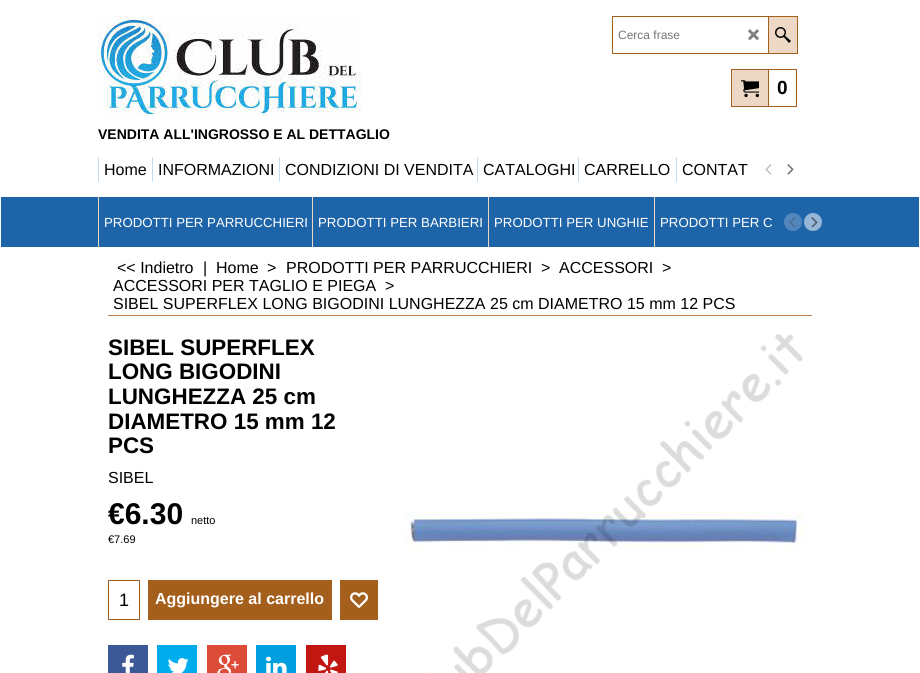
#include <cairo/cairo.h>
#include <math.h>
#include <stddef.h>


static void draw_image(cairo_t *cr, const char *path, double x, double y, double w, double h) {
  cairo_surface_t *image = cairo_image_surface_create_from_png(path);
  cairo_save(cr);
  cairo_set_source_surface(cr, image, x, y);
  cairo_rectangle(cr, x, y, w, h);
  cairo_fill(cr);
  cairo_restore(cr);
  cairo_surface_destroy(image);
}

static void draw(cairo_t *cr) {
  cairo_set_source_rgb(cr, 1, 1, 1);
  cairo_paint(cr);
  cairo_rectangle(cr, 612.5, 16.5, 185, 37);
  cairo_set_source_rgb(cr, 165 / 255.0, 95 / 255.0, 29 / 255.0);
  cairo_set_line_width(cr, 1);
  cairo_stroke(cr);
  draw_image(cr, "images/1.png", 748, 29, 11, 12);
  cairo_set_source_rgb(cr, 236 / 255.0, 216 / 255.0, 197 / 255.0);
  cairo_rectangle(cr, 769, 17, 28, 36);
  cairo_fill(cr);
  cairo_set_source_rgb(cr, 165 / 255.0, 95 / 255.0, 29 / 255.0);
  cairo_rectangle(cr, 768, 17, 1, 36);
  cairo_fill(cr);
  draw_image(cr, "images/2.png", 775, 27, 16, 16);
  cairo_set_source_rgb(cr, 236 / 255.0, 216 / 255.0, 197 / 255.0);
  cairo_rectangle(cr, 731.5, 69.5, 37, 37);
  cairo_fill_preserve(cr);
  cairo_set_source_rgb(cr, 165 / 255.0, 95 / 255.0, 29 / 255.0);
  cairo_stroke(cr);
  draw_image(cr, "images/3.png", 741, 80, 18, 18);
  cairo_rectangle(cr, 768.5, 69.5, 28, 37);
  cairo_stroke(cr);
  draw_image(cr, "images/4.png", 98, 16, 264, 100);
  cairo_set_source_rgb(cr, 198 / 255.0, 218 / 255.0, 237 / 255.0);
  cairo_rectangle(cr, 98, 157, 1, 25);
  cairo_fill(cr);
  cairo_rectangle(cr, 152, 157, 1, 25);
  cairo_fill(cr);
  cairo_rectangle(cr, 279, 157, 1, 25);
  cairo_fill(cr);
  cairo_rectangle(cr, 477, 157, 1, 25);
  cairo_fill(cr);
  cairo_rectangle(cr, 578, 157, 1, 25);
  cairo_fill(cr);
  cairo_rectangle(cr, 676, 157, 1, 25);
  cairo_fill(cr);
  draw_image(cr, "images/5.png", 765, 164, 7, 11);
  draw_image(cr, "images/6.png", 787, 164, 7, 11);
  cairo_set_source_rgb(cr, 30 / 255.0, 100 / 255.0, 168 / 255.0);
  cairo_rectangle(cr, 1, 197, 918, 50);
  cairo_fill(cr);
  cairo_set_source_rgb(cr, 236 / 255.0, 216 / 255.0, 197 / 255.0);
  cairo_rectangle(cr, 98, 197, 1, 50);
  cairo_fill(cr);
  cairo_rectangle(cr, 312, 197, 1, 50);
  cairo_fill(cr);
  cairo_rectangle(cr, 488, 197, 1, 50);
  cairo_fill(cr);
  cairo_rectangle(cr, 654, 197, 1, 50);
  cairo_fill(cr);
  cairo_set_source_rgb(cr, 81 / 255.0, 135 / 255.0, 188 / 255.0);
  cairo_arc(cr, 793, 222, 9, 0, 2 * M_PI);
  cairo_fill(cr);
  draw_image(cr, "images/7.png", 789, 217, 7, 10);
  cairo_set_source_rgb(cr, 149 / 255.0, 182 / 255.0, 214 / 255.0);
  cairo_arc(cr, 813, 222, 9, 0, 2 * M_PI);
  cairo_fill(cr);
  draw_image(cr, "images/8.png", 811, 217, 7, 10);
  cairo_set_source_rgb(cr, 186 / 255.0, 127 / 255.0, 71 / 255.0);
  cairo_rectangle(cr, 108, 315, 704, 1);
  cairo_fill(cr);
  cairo_set_source_rgb(cr, 165 / 255.0, 95 / 255.0, 29 / 255.0);
  cairo_rectangle(cr, 108, 580, 32, 40);
  cairo_fill(cr);
  cairo_set_source_rgb(cr, 1, 1, 1);
  cairo_rectangle(cr, 109, 581, 30, 38);
  cairo_fill(cr);
  cairo_set_source_rgb(cr, 165 / 255.0, 95 / 255.0, 29 / 255.0);
  cairo_rectangle(cr, 148, 580, 184, 40);
  cairo_fill(cr);
  cairo_rectangle(cr, 340, 580, 38, 40);
  cairo_fill(cr);
  draw_image(cr, "images/9.png", 350, 592, 18, 16);
  cairo_set_source_rgb(cr, 60 / 255.0, 88 / 255.0, 151 / 255.0);
  cairo_rectangle(cr, 108, 645, 40, 28);
  cairo_fill(cr);
  draw_image(cr, "images/10.png", 122, 654, 12, 19);
  cairo_set_source_rgb(cr, 0, 173 / 255.0, 236 / 255.0);
  cairo_rectangle(cr, 157, 645, 40, 28);
  cairo_fill(cr);
  draw_image(cr, "images/11.png", 168, 658, 21, 15);
  cairo_set_source_rgb(cr, 221 / 255.0, 76 / 255.0, 57 / 255.0);
  cairo_rectangle(cr, 207, 645, 40, 28);
  cairo_fill(cr);
  draw_image(cr, "images/12.png", 217, 654, 22, 19);
  cairo_set_source_rgb(cr, 1 / 255.0, 159 / 255.0, 224 / 255.0);
  cairo_rectangle(cr, 256, 645, 40, 28);
  cairo_fill(cr);
  draw_image(cr, "images/13.png", 266, 656, 21, 17);
  cairo_set_source_rgb(cr, 194 / 255.0, 22 / 255.0, 19 / 255.0);
  cairo_rectangle(cr, 306, 645, 40, 28);
  cairo_fill(cr);
  draw_image(cr, "images/14.png", 318, 654, 20, 19);
  draw_image(cr, "images/15.png", 405, 334, 400, 339);
  cairo_select_font_face(cr, "Liberation Sans", CAIRO_FONT_SLANT_NORMAL, CAIRO_FONT_WEIGHT_NORMAL);
  cairo_set_font_size(cr, 12);
  cairo_set_source_rgb(cr, 117 / 255.0, 117 / 255.0, 117 / 255.0);
  cairo_move_to(cr, 618, 39);
  cairo_show_text(cr, "Cerca frase");
  cairo_select_font_face(cr, "Liberation Sans", CAIRO_FONT_SLANT_NORMAL, CAIRO_FONT_WEIGHT_BOLD);
  cairo_set_font_size(cr, 19);
  cairo_set_source_rgb(cr, 0, 0, 0);
  cairo_move_to(cr, 777, 94);
  cairo_show_text(cr, "0");
  cairo_set_font_size(cr, 14);
  cairo_move_to(cr, 98, 139);
  cairo_show_text(cr, "VENDITA ALL'INGROSSO E AL DETTAGLIO");
  cairo_select_font_face(cr, "Liberation Sans", CAIRO_FONT_SLANT_NORMAL, CAIRO_FONT_WEIGHT_NORMAL);
  cairo_set_font_size(cr, 16);
  cairo_move_to(cr, 104, 175);
  cairo_show_text(cr, "Home");
  cairo_move_to(cr, 158, 175);
  cairo_show_text(cr, "INFORMAZIONI");
  cairo_move_to(cr, 285, 175);
  cairo_show_text(cr, "CONDIZIONI DI VENDITA");
  cairo_move_to(cr, 483, 175);
  cairo_show_text(cr, "CATALOGHI");
  cairo_move_to(cr, 584, 175);
  cairo_show_text(cr, "CARRELLO");
  cairo_move_to(cr, 682, 175);
  cairo_show_text(cr, "CONTAT");
  cairo_set_font_size(cr, 13.25);
  cairo_set_source_rgb(cr, 1, 1, 1);
  cairo_move_to(cr, 104, 227);
  cairo_show_text(cr, "PRODOTTI PER PARRUCCHIERI");
  cairo_move_to(cr, 318, 227);
  cairo_show_text(cr, "PRODOTTI PER BARBIERI");
  cairo_move_to(cr, 494, 227);
  cairo_show_text(cr, "PRODOTTI PER UNGHIE");
  cairo_move_to(cr, 660, 227);
  cairo_show_text(cr, "PRODOTTI PER C");
  cairo_set_font_size(cr, 16);
  cairo_set_source_rgb(cr, 0, 0, 0);
  cairo_move_to(cr, 117, 273);
  cairo_show_text(cr, "<< Indietro");
  cairo_move_to(cr, 203, 273);
  cairo_show_text(cr, "|");
  cairo_move_to(cr, 216, 273);
  cairo_show_text(cr, "Home");
  cairo_move_to(cr, 267, 273);
  cairo_show_text(cr, ">");
  cairo_move_to(cr, 286, 273);
  cairo_show_text(cr, "PRODOTTI PER PARRUCCHIERI");
  cairo_move_to(cr, 541, 273);
  cairo_show_text(cr, ">");
  cairo_move_to(cr, 559, 273);
  cairo_show_text(cr, "ACCESSORI");
  cairo_move_to(cr, 662, 273);
  cairo_show_text(cr, ">");
  cairo_move_to(cr, 113, 291);
  cairo_show_text(cr, "ACCESSORI PER TAGLIO E PIEGA");
  cairo_move_to(cr, 385, 291);
  cairo_show_text(cr, ">");
  cairo_move_to(cr, 113, 309);
  cairo_show_text(cr, "SIBEL SUPERFLEX LONG BIGODINI LUNGHEZZA 25 cm DIAMETRO 15 mm 12 PCS");
  cairo_select_font_face(cr, "Liberation Sans", CAIRO_FONT_SLANT_NORMAL, CAIRO_FONT_WEIGHT_BOLD);
  cairo_set_font_size(cr, 22.4);
  cairo_move_to(cr, 108, 355);
  cairo_show_text(cr, "SIBEL SUPERFLEX");
  cairo_move_to(cr, 108, 379);
  cairo_show_text(cr, "LONG BIGODINI");
  cairo_move_to(cr, 108, 404);
  cairo_show_text(cr, "LUNGHEZZA 25 cm");
  cairo_move_to(cr, 108, 429);
  cairo_show_text(cr, "DIAMETRO 15 mm 12");
  cairo_move_to(cr, 108, 453);
  cairo_show_text(cr, "PCS");
  cairo_select_font_face(cr, "Liberation Sans", CAIRO_FONT_SLANT_NORMAL, CAIRO_FONT_WEIGHT_NORMAL);
  cairo_set_font_size(cr, 16);
  cairo_move_to(cr, 108, 483);
  cairo_show_text(cr, "SIBEL");
  cairo_select_font_face(cr, "Liberation Sans", CAIRO_FONT_SLANT_NORMAL, CAIRO_FONT_WEIGHT_BOLD);
  cairo_set_font_size(cr, 30);
  cairo_move_to(cr, 108, 524);
  cairo_show_text(cr, "€6.30");
  cairo_select_font_face(cr, "Liberation Sans", CAIRO_FONT_SLANT_NORMAL, CAIRO_FONT_WEIGHT_NORMAL);
  cairo_set_font_size(cr, 11);
  cairo_move_to(cr, 191, 524);
  cairo_show_text(cr, "netto");
  cairo_move_to(cr, 108, 543);
  cairo_show_text(cr, "€7.69");
  cairo_set_font_size(cr, 18);
  cairo_move_to(cr, 119, 606);
  cairo_show_text(cr, "1");
  cairo_select_font_face(cr, "Liberation Sans", CAIRO_FONT_SLANT_NORMAL, CAIRO_FONT_WEIGHT_BOLD);
  cairo_set_font_size(cr, 16);
  cairo_set_source_rgb(cr, 1, 1, 1);
  cairo_move_to(cr, 155, 604);
  cairo_show_text(cr, "Aggiungere al carrello");
}

int main(void) {
  cairo_surface_t *surface = cairo_image_surface_create(CAIRO_FORMAT_RGB24, 920, 673);
  cairo_t *cr = cairo_create(surface);
  cairo_font_options_t *options = cairo_font_options_create();
  cairo_font_options_set_hint_metrics(options, CAIRO_HINT_METRICS_OFF);
  cairo_font_options_set_hint_style(options, CAIRO_HINT_STYLE_NONE);
  cairo_set_font_options(cr, options);
  cairo_set_miter_limit(cr, 4);
  draw(cr);
  cairo_surface_write_to_png(surface, "out.png");
  cairo_font_options_destroy(options);
  cairo_destroy(cr);
  cairo_surface_destroy(surface);
  return 0;
}
